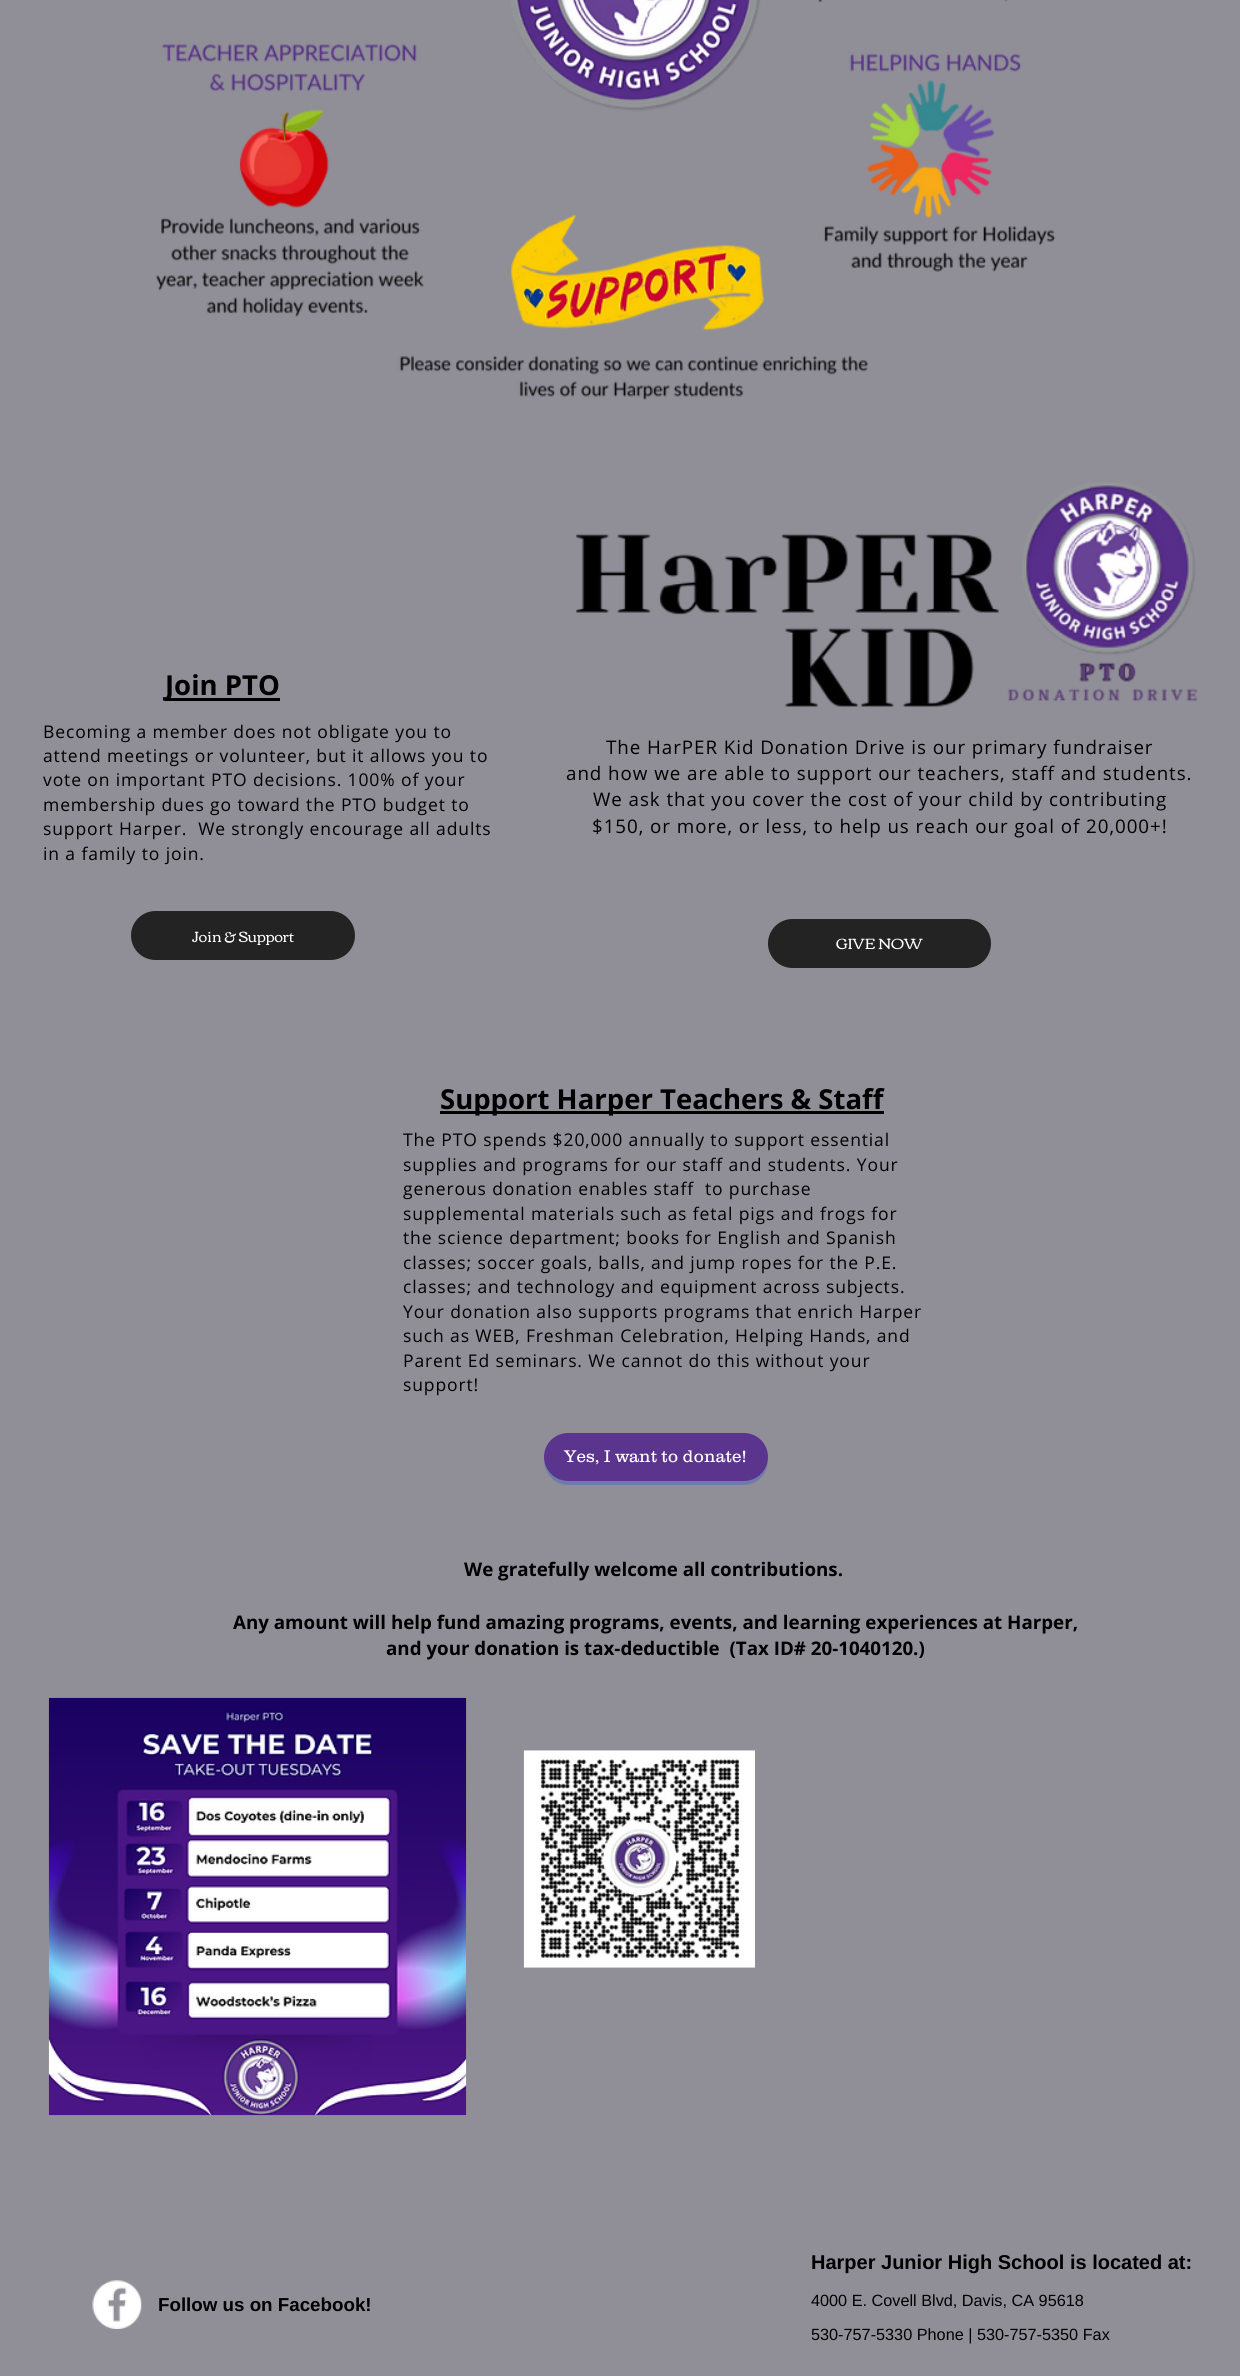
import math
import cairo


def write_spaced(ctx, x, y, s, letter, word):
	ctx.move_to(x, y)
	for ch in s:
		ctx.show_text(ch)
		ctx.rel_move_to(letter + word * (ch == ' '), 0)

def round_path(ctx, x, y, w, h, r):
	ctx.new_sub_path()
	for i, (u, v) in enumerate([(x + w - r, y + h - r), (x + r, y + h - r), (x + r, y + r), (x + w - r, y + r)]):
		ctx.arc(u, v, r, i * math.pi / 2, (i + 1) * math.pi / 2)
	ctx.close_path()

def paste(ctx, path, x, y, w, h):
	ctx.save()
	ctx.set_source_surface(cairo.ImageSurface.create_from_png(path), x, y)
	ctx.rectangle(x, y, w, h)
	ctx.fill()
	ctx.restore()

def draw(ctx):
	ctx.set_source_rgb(0.565, 0.561, 0.596)
	ctx.paint()
	paste(ctx, 'media/1.png', 156, 0, 899, 400)
	ctx.set_source_rgb(0, 0, 0)
	ctx.rectangle(165, 698, 115, 3)
	ctx.fill()
	ctx.select_font_face('Open Sans', cairo.FONT_SLANT_NORMAL, cairo.FONT_WEIGHT_BOLD)
	ctx.set_font_size(27.5)
	ctx.move_to(165, 695)
	ctx.show_text('Join PTO')
	paste(ctx, 'media/2.png', 576, 482, 622, 225)
	ctx.select_font_face('Open Sans')
	ctx.set_font_size(17.5)
	for x, y, s in [
		(43, 738, 'Becoming a member does not obligate you to'),
		(43, 762, 'attend meetings or volunteer, but it allows you to'),
		(43, 786, 'vote on important PTO decisions. 100% of your'),
		(43, 811, 'membership dues go toward the PTO budget to'),
		(43, 835, 'support Harper.  We strongly encourage all adults'),
		(43, 860, 'in a family to join.'),
	]:
		write_spaced(ctx, x, y, s, 0.88, 0)
	ctx.set_font_size(18.75)
	for x, y, s in [
		(606, 754, 'The HarPER Kid Donation Drive is our primary fundraiser'),
		(566, 780, 'and how we are able to support our teachers, staff and students.'),
		(593, 806, 'We ask that you cover the cost of your child by contributing'),
		(592, 833, '$150, or more, or less, to help us reach our goal of 20,000+!'),
	]:
		write_spaced(ctx, x, y, s, 0.95, 0)
	ctx.set_source_rgb(0.137, 0.137, 0.137)
	round_path(ctx, 131, 911, 224, 49, 24.5)
	ctx.fill()
	ctx.select_font_face('Corben')
	ctx.set_font_size(15)
	ctx.set_source_rgb(1, 1, 1)
	ctx.move_to(192, 942)
	ctx.show_text('Join & Support')
	ctx.set_source_rgb(0.137, 0.137, 0.137)
	round_path(ctx, 768, 919, 223, 49, 24.5)
	ctx.fill()
	ctx.set_source_rgb(1, 1, 1)
	ctx.move_to(836, 949)
	ctx.show_text('GIVE NOW')
	ctx.set_source_rgb(0, 0, 0)
	ctx.rectangle(440, 1111, 444, 3)
	ctx.fill()
	ctx.select_font_face('Open Sans', cairo.FONT_SLANT_NORMAL, cairo.FONT_WEIGHT_BOLD)
	ctx.set_font_size(27.5)
	ctx.move_to(440, 1109)
	ctx.show_text('Support Harper Teachers & Staff')
	ctx.select_font_face('Open Sans')
	ctx.set_font_size(17.5)
	for x, y, s in [
		(403, 1146, 'The PTO spends $20,000 annually to support essential'),
		(403, 1171, 'supplies and programs for our staff and students. Your'),
		(403, 1195, 'generous donation enables staff  to purchase'),
		(403, 1220, 'supplemental materials such as fetal pigs and frogs for'),
		(403, 1244, 'the science department; books for English and Spanish'),
		(403, 1269, 'classes; soccer goals, balls, and jump ropes for the P.E.'),
		(403, 1293, 'classes; and technology and equipment across subjects.'),
		(403, 1318, 'Your donation also supports programs that enrich Harper'),
		(403, 1342, 'such as WEB, Freshman Celebration, Helping Hands, and'),
		(403, 1367, 'Parent Ed seminars. We cannot do this without your'),
		(403, 1391, 'support!'),
	]:
		write_spaced(ctx, x, y, s, 0.88, 0)
	ctx.set_source_rgb(0.427, 0.486, 0.671)
	ctx.new_path()
	ctx.move_to(544, 1460)
	ctx.curve_to(544, 1474, 555, 1485, 568, 1485)
	ctx.line_to(744, 1485)
	ctx.curve_to(757, 1485, 768, 1474, 768, 1460)
	ctx.line_to(767, 1455)
	ctx.line_to(768, 1457)
	ctx.curve_to(768, 1470, 757, 1481, 743, 1481)
	ctx.line_to(568, 1481)
	ctx.curve_to(556, 1481, 546, 1472, 544, 1460)
	ctx.close_path()
	ctx.fill()
	ctx.set_source_rgb(0.357, 0.204, 0.553)
	round_path(ctx, 544, 1433, 224, 48, 24)
	ctx.fill()
	ctx.select_font_face('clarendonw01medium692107 Light')
	ctx.set_source_rgb(1, 1, 1)
	ctx.move_to(564, 1462)
	ctx.show_text('Yes, I want to donate!')
	ctx.select_font_face('Open Sans', cairo.FONT_SLANT_NORMAL, cairo.FONT_WEIGHT_BOLD)
	ctx.set_font_size(18.75)
	ctx.set_source_rgb(0, 0, 0)
	for x, y, s in [
		(464, 1576, 'We gratefully welcome all contributions.'),
		(233, 1629, 'Any amount will help fund amazing programs, events, and learning experiences at Harper,'),
		(386, 1655, 'and your donation is tax-deductible  (Tax ID# 20-1040120.)'),
	]:
		ctx.move_to(x, y)
		ctx.show_text(s)
	paste(ctx, 'media/3.png', 48, 1697, 419, 419)
	paste(ctx, 'media/4.png', 523, 1750, 232, 218)
	paste(ctx, 'media/5.png', 92, 2280, 50, 49)
	ctx.select_font_face('Liberation Sans', cairo.FONT_SLANT_NORMAL, cairo.FONT_WEIGHT_BOLD)
	ctx.move_to(158, 2311)
	ctx.show_text('Follow us on Facebook!')
	ctx.set_font_size(20)
	ctx.move_to(811, 2269)
	ctx.show_text('Harper Junior High School is located at:')
	ctx.select_font_face('Liberation Sans')
	ctx.set_font_size(16.25)
	ctx.move_to(811, 2306)
	ctx.show_text('4000 E. Covell Blvd, Davis, CA 95618')
	ctx.move_to(811, 2340)
	ctx.show_text('530-757-5330 Phone | 530-757-5350 Fax')


surface = cairo.ImageSurface(cairo.FORMAT_RGB24, 1240, 2376)
ctx = cairo.Context(surface)
options = cairo.FontOptions()
options.set_hint_metrics(cairo.HINT_METRICS_OFF)
options.set_hint_style(cairo.HINT_STYLE_NONE)
ctx.set_font_options(options)
ctx.set_miter_limit(4)
draw(ctx)
surface.write_to_png('image.png')
